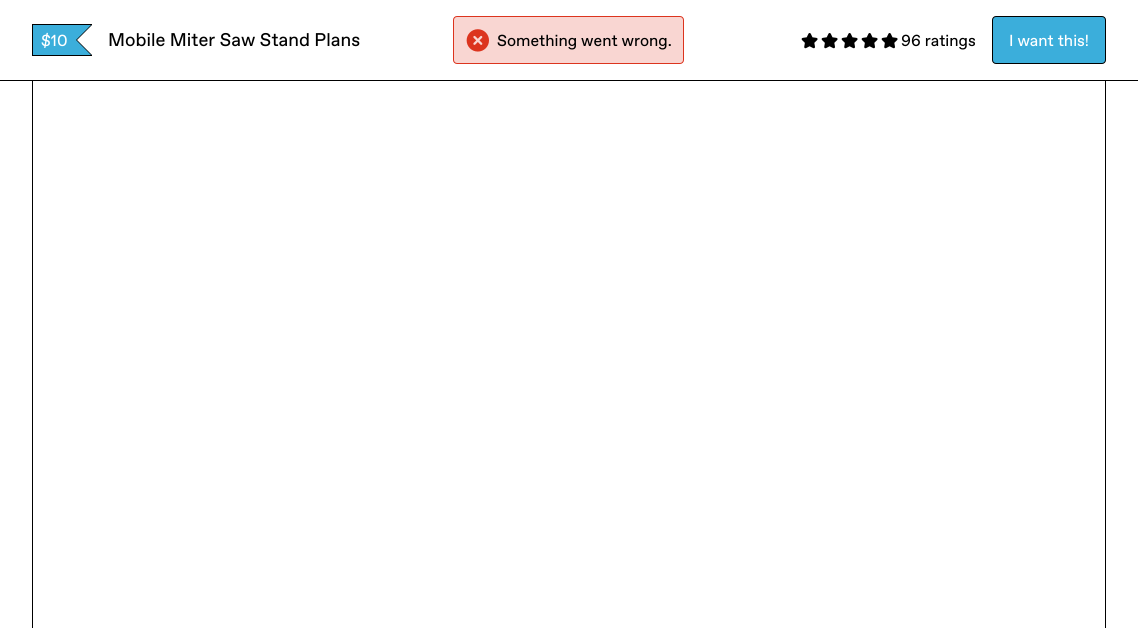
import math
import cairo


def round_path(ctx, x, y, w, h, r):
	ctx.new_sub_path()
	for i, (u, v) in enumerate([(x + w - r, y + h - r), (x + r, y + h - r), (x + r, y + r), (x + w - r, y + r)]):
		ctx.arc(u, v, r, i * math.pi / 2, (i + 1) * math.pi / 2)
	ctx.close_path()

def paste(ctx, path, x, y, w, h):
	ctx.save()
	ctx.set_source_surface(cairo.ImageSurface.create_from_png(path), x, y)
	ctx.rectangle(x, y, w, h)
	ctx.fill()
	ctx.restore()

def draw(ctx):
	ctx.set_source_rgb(1, 1, 1)
	ctx.paint()
	ctx.rectangle(32.5, 64.5, 1073, 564)
	ctx.set_source_rgb(0, 0, 0)
	ctx.set_line_width(1)
	ctx.stroke()
	ctx.rectangle(0, 80, 1138, 1)
	ctx.fill()
	ctx.set_source_rgb(1, 1, 1)
	ctx.rectangle(32, 64, 1074, 16)
	ctx.fill()
	ctx.set_source_rgb(0, 0, 0)
	ctx.rectangle(32, 24, 60, 1)
	ctx.rectangle(32, 55, 60, 1)
	ctx.rectangle(32, 24, 1, 32)
	ctx.fill()
	ctx.set_source_rgb(0.231, 0.682, 0.859)
	ctx.rectangle(33, 25, 43, 30)
	ctx.fill()
	ctx.set_source_rgb(0, 0, 0)
	ctx.new_path()
	ctx.move_to(76, 25)
	ctx.line_to(92, 25)
	ctx.line_to(77, 40)
	ctx.close_path()
	ctx.move_to(92, 55)
	ctx.line_to(76, 55)
	ctx.line_to(77, 40)
	ctx.close_path()
	ctx.fill()
	ctx.rectangle(76, 39, 1, 2)
	ctx.fill()
	ctx.set_source_rgb(0.231, 0.682, 0.859)
	ctx.new_path()
	ctx.move_to(75, 25)
	ctx.line_to(91, 25)
	ctx.line_to(76, 40)
	ctx.close_path()
	ctx.move_to(91, 55)
	ctx.line_to(75, 55)
	ctx.line_to(76, 40)
	ctx.close_path()
	ctx.fill()
	ctx.select_font_face('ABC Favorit')
	ctx.set_font_size(16)
	ctx.set_source_rgb(1, 1, 1)
	ctx.move_to(41, 46)
	ctx.show_text('$10')
	ctx.set_font_size(18.4)
	ctx.set_source_rgb(0, 0, 0)
	ctx.move_to(108, 46)
	ctx.show_text('Mobile Miter Saw Stand Plans')
	paste(ctx, 'media/1.png', 801, 33, 17, 16)
	paste(ctx, 'media/1.png', 821, 33, 17, 16)
	paste(ctx, 'media/1.png', 841, 33, 17, 16)
	paste(ctx, 'media/1.png', 861, 33, 17, 16)
	paste(ctx, 'media/1.png', 881, 33, 17, 16)
	ctx.set_font_size(16)
	ctx.move_to(901, 46)
	ctx.show_text('96 ratings')
	ctx.set_source_rgb(0.231, 0.682, 0.859)
	round_path(ctx, 992.5, 16.5, 113, 47, 3.5)
	ctx.fill_preserve()
	ctx.set_source_rgb(0, 0, 0)
	ctx.stroke()
	ctx.set_source_rgb(1, 1, 1)
	ctx.move_to(1009, 46)
	ctx.show_text('I want this!')
	ctx.set_source_rgb(0.973, 0.839, 0.824)
	round_path(ctx, 453.5, 16.5, 230, 47, 3.5)
	ctx.fill_preserve()
	ctx.set_source_rgb(0.863, 0.204, 0.118)
	ctx.stroke()
	paste(ctx, 'media/2.png', 466, 29, 23, 23)
	ctx.set_source_rgb(0, 0, 0)
	ctx.move_to(497, 46)
	ctx.show_text('Something went wrong.')


surface = cairo.ImageSurface(cairo.FORMAT_RGB24, 1138, 628)
ctx = cairo.Context(surface)
options = cairo.FontOptions()
options.set_hint_metrics(cairo.HINT_METRICS_OFF)
options.set_hint_style(cairo.HINT_STYLE_NONE)
ctx.set_font_options(options)
ctx.set_miter_limit(4)
draw(ctx)
surface.write_to_png('image.png')
